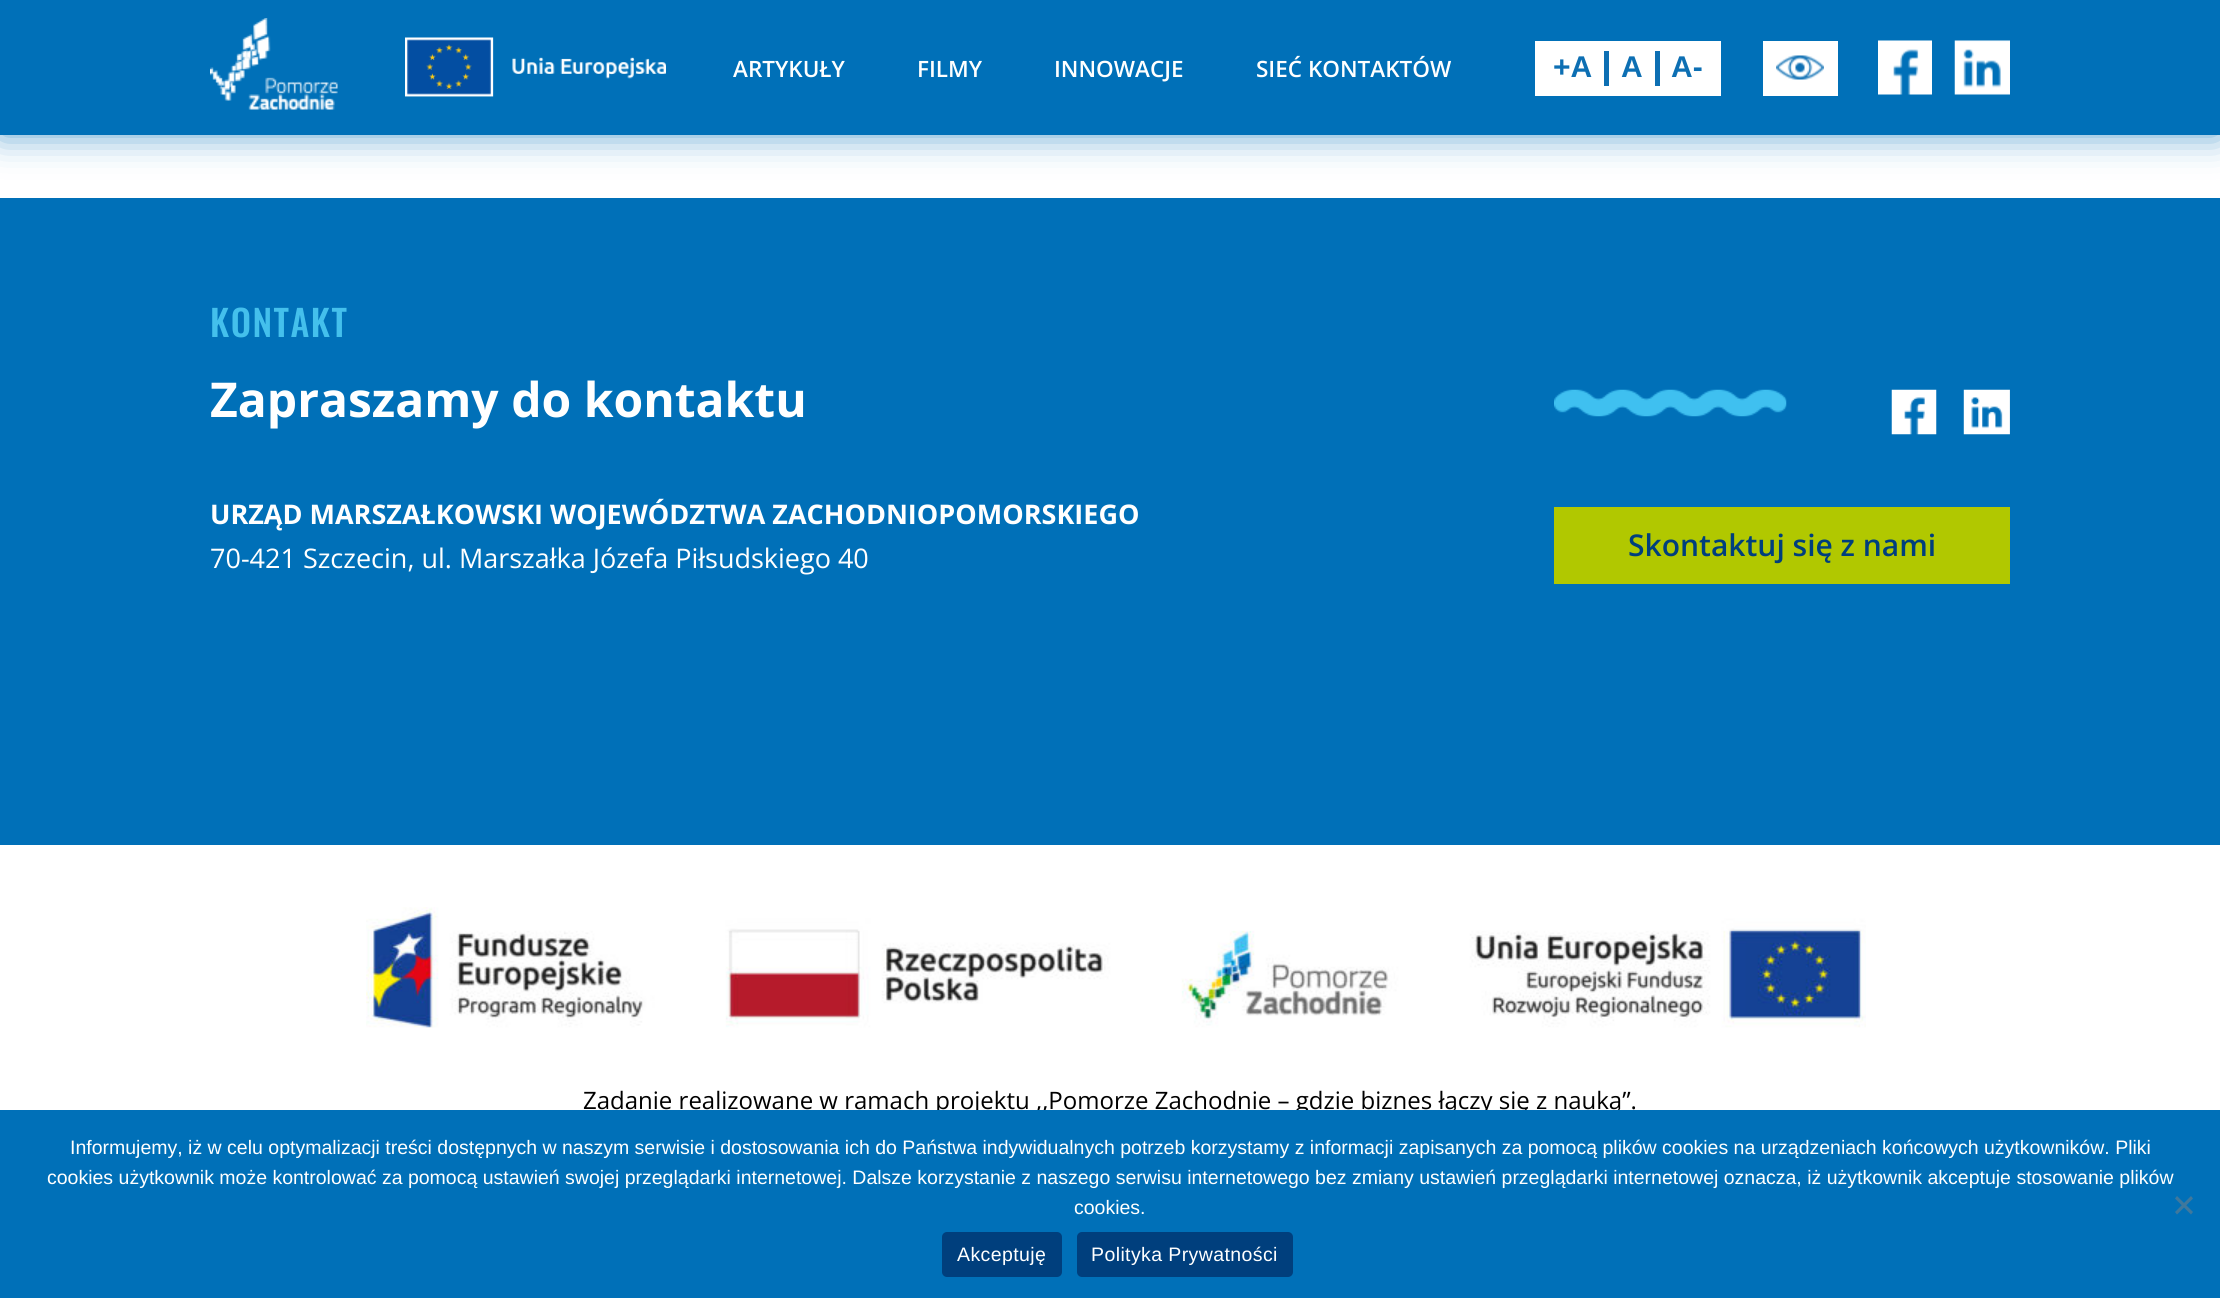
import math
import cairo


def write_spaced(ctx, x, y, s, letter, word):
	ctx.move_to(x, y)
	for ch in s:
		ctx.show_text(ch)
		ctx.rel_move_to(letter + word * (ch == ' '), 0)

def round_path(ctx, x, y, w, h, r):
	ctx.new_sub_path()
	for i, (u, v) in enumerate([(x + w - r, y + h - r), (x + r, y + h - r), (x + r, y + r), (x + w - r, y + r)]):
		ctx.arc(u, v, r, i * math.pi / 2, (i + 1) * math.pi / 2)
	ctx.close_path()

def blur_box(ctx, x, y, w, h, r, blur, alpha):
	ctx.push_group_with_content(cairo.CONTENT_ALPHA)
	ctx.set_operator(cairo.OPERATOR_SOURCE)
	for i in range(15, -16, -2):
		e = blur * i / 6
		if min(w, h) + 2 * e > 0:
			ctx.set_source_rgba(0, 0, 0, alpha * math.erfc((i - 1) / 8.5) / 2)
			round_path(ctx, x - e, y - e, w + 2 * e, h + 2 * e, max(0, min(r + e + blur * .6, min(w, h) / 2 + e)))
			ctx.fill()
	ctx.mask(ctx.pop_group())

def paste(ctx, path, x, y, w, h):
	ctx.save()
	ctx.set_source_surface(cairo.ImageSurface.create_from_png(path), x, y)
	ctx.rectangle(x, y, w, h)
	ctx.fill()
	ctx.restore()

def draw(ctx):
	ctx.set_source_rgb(1, 1, 1)
	ctx.paint()
	ctx.set_source_rgb(0, 0.439, 0.722)
	blur_box(ctx, 0, 0, 2220, 135, 0, 18, 0.66)
	ctx.set_source_rgb(0, 0.439, 0.722)
	ctx.rectangle(0, 0, 2220, 135)
	ctx.fill()
	paste(ctx, 'media/1.png', 210, 18, 128, 92)
	paste(ctx, 'media/2.png', 405, 37, 261, 60)
	ctx.select_font_face('Open Sans SemiBold')
	ctx.set_font_size(22.5)
	ctx.set_source_rgb(1, 1, 1)
	for x, y, s in [
		(733, 77, 'ARTYKUŁY'),
		(917, 77, 'FILMY'),
		(1054, 77, 'INNOWACJE'),
		(1256, 77, 'SIEĆ KONTAKTÓW'),
	]:
		ctx.move_to(x, y)
		ctx.show_text(s)
	ctx.rectangle(1535, 41, 186, 55)
	ctx.fill()
	ctx.set_source_rgb(0.051, 0.435, 0.702)
	ctx.rectangle(1604, 51, 5, 35)
	ctx.fill()
	ctx.select_font_face('Liberation Sans', cairo.FONT_SLANT_NORMAL, cairo.FONT_WEIGHT_BOLD)
	ctx.set_font_size(30)
	ctx.move_to(1553, 77)
	ctx.show_text('+A')
	ctx.rectangle(1655, 51, 5, 35)
	ctx.fill()
	ctx.move_to(1621, 77)
	ctx.show_text('A')
	ctx.move_to(1671, 77)
	ctx.show_text('A-')
	ctx.set_source_rgb(1, 1, 1)
	ctx.rectangle(1763, 41, 75, 55)
	ctx.fill()
	paste(ctx, 'media/3.png', 1776, 55, 48, 25)
	paste(ctx, 'media/4.png', 1878, 40, 54, 55)
	paste(ctx, 'media/5.png', 1954, 40, 56, 55)
	ctx.set_source_rgb(0, 0.439, 0.722)
	ctx.rectangle(0, 198, 2220, 647)
	ctx.fill()
	ctx.select_font_face('Oswald Medium')
	ctx.set_font_size(36)
	ctx.set_source_rgb(0.267, 0.753, 0.922)
	write_spaced(ctx, 210, 337, 'KONTAKT', 1.5, 0)
	ctx.select_font_face('Open Sans', cairo.FONT_SLANT_NORMAL, cairo.FONT_WEIGHT_BOLD)
	ctx.set_font_size(48)
	ctx.set_source_rgb(1, 1, 1)
	ctx.move_to(210, 417)
	ctx.show_text('Zapraszamy do kontaktu')
	ctx.set_font_size(27)
	ctx.move_to(210, 524)
	ctx.show_text('URZĄD MARSZAŁKOWSKI WOJEWÓDZTWA ZACHODNIOPOMORSKIEGO')
	ctx.select_font_face('Open Sans')
	ctx.move_to(210, 568)
	ctx.show_text('70-421 Szczecin, ul. Marszałka Józefa Piłsudskiego 40')
	paste(ctx, 'media/6.png', 1554, 389, 233, 28)
	paste(ctx, 'media/7.png', 1891, 389, 46, 46)
	paste(ctx, 'media/8.png', 1963, 389, 47, 46)
	ctx.set_source_rgb(0.694, 0.784, 0)
	ctx.rectangle(1554, 507, 456, 77)
	ctx.fill()
	ctx.select_font_face('Open Sans SemiBold')
	ctx.set_font_size(30)
	ctx.set_source_rgb(0, 0.247, 0.49)
	ctx.move_to(1628, 556)
	ctx.show_text('Skontaktuj się z nami')
	paste(ctx, 'media/9.png', 366, 907, 1500, 121)
	ctx.select_font_face('Open Sans')
	ctx.set_font_size(24)
	ctx.set_source_rgb(0, 0, 0)
	ctx.move_to(583, 1109)
	ctx.show_text('Zadanie realizowane w ramach projektu ,,Pomorze Zachodnie – gdzie biznes łączy się z nauką”.')
	ctx.set_source_rgb(0, 0.439, 0.722)
	ctx.rectangle(0, 1110, 2220, 188)
	ctx.fill()
	ctx.select_font_face('Liberation Sans')
	ctx.set_font_size(19.5)
	ctx.set_source_rgb(1, 1, 1)
	for x, y, s in [
		(70, 1154, 'Informujemy, iż w celu optymalizacji treści dostępnych w naszym serwisie i dostosowania ich do Państwa indywidualnych potrzeb korzystamy z informacji zapisanych za pomocą plików cookies na urządzeniach końcowych użytkowników. Pliki'),
		(47, 1184, 'cookies użytkownik może kontrolować za pomocą ustawień swojej przeglądarki internetowej. Dalsze korzystanie z naszego serwisu internetowego bez zmiany ustawień przeglądarki internetowej oznacza, iż użytkownik akceptuje stosowanie plików'),
		(1074, 1214, 'cookies.'),
	]:
		ctx.move_to(x, y)
		ctx.show_text(s)
	ctx.set_source_rgb(0.251, 0.471, 0.612)
	ctx.new_path()
	ctx.move_to(2191, 1196)
	ctx.line_to(2193, 1198.5)
	ctx.line_to(2177, 1214.5)
	ctx.line_to(2175, 1212)
	ctx.close_path()
	ctx.fill()
	ctx.new_path()
	ctx.move_to(2175, 1198.5)
	ctx.line_to(2177, 1196)
	ctx.line_to(2193, 1212)
	ctx.line_to(2191, 1214.5)
	ctx.close_path()
	ctx.fill()
	ctx.set_source_rgb(0, 0.247, 0.49)
	round_path(ctx, 942, 1232, 120, 45, 5)
	ctx.fill()
	ctx.set_source_rgb(1, 1, 1)
	write_spaced(ctx, 957, 1261, 'Akceptuję', 0.4, 0)
	ctx.set_source_rgb(0, 0.247, 0.49)
	round_path(ctx, 1077, 1232, 216, 45, 5)
	ctx.fill()
	ctx.set_source_rgb(1, 1, 1)
	write_spaced(ctx, 1091, 1261, 'Polityka Prywatności', 0.4, 0)


surface = cairo.ImageSurface(cairo.FORMAT_RGB24, 2220, 1298)
ctx = cairo.Context(surface)
options = cairo.FontOptions()
options.set_hint_metrics(cairo.HINT_METRICS_OFF)
options.set_hint_style(cairo.HINT_STYLE_NONE)
ctx.set_font_options(options)
ctx.set_miter_limit(4)
draw(ctx)
surface.write_to_png('image.png')
